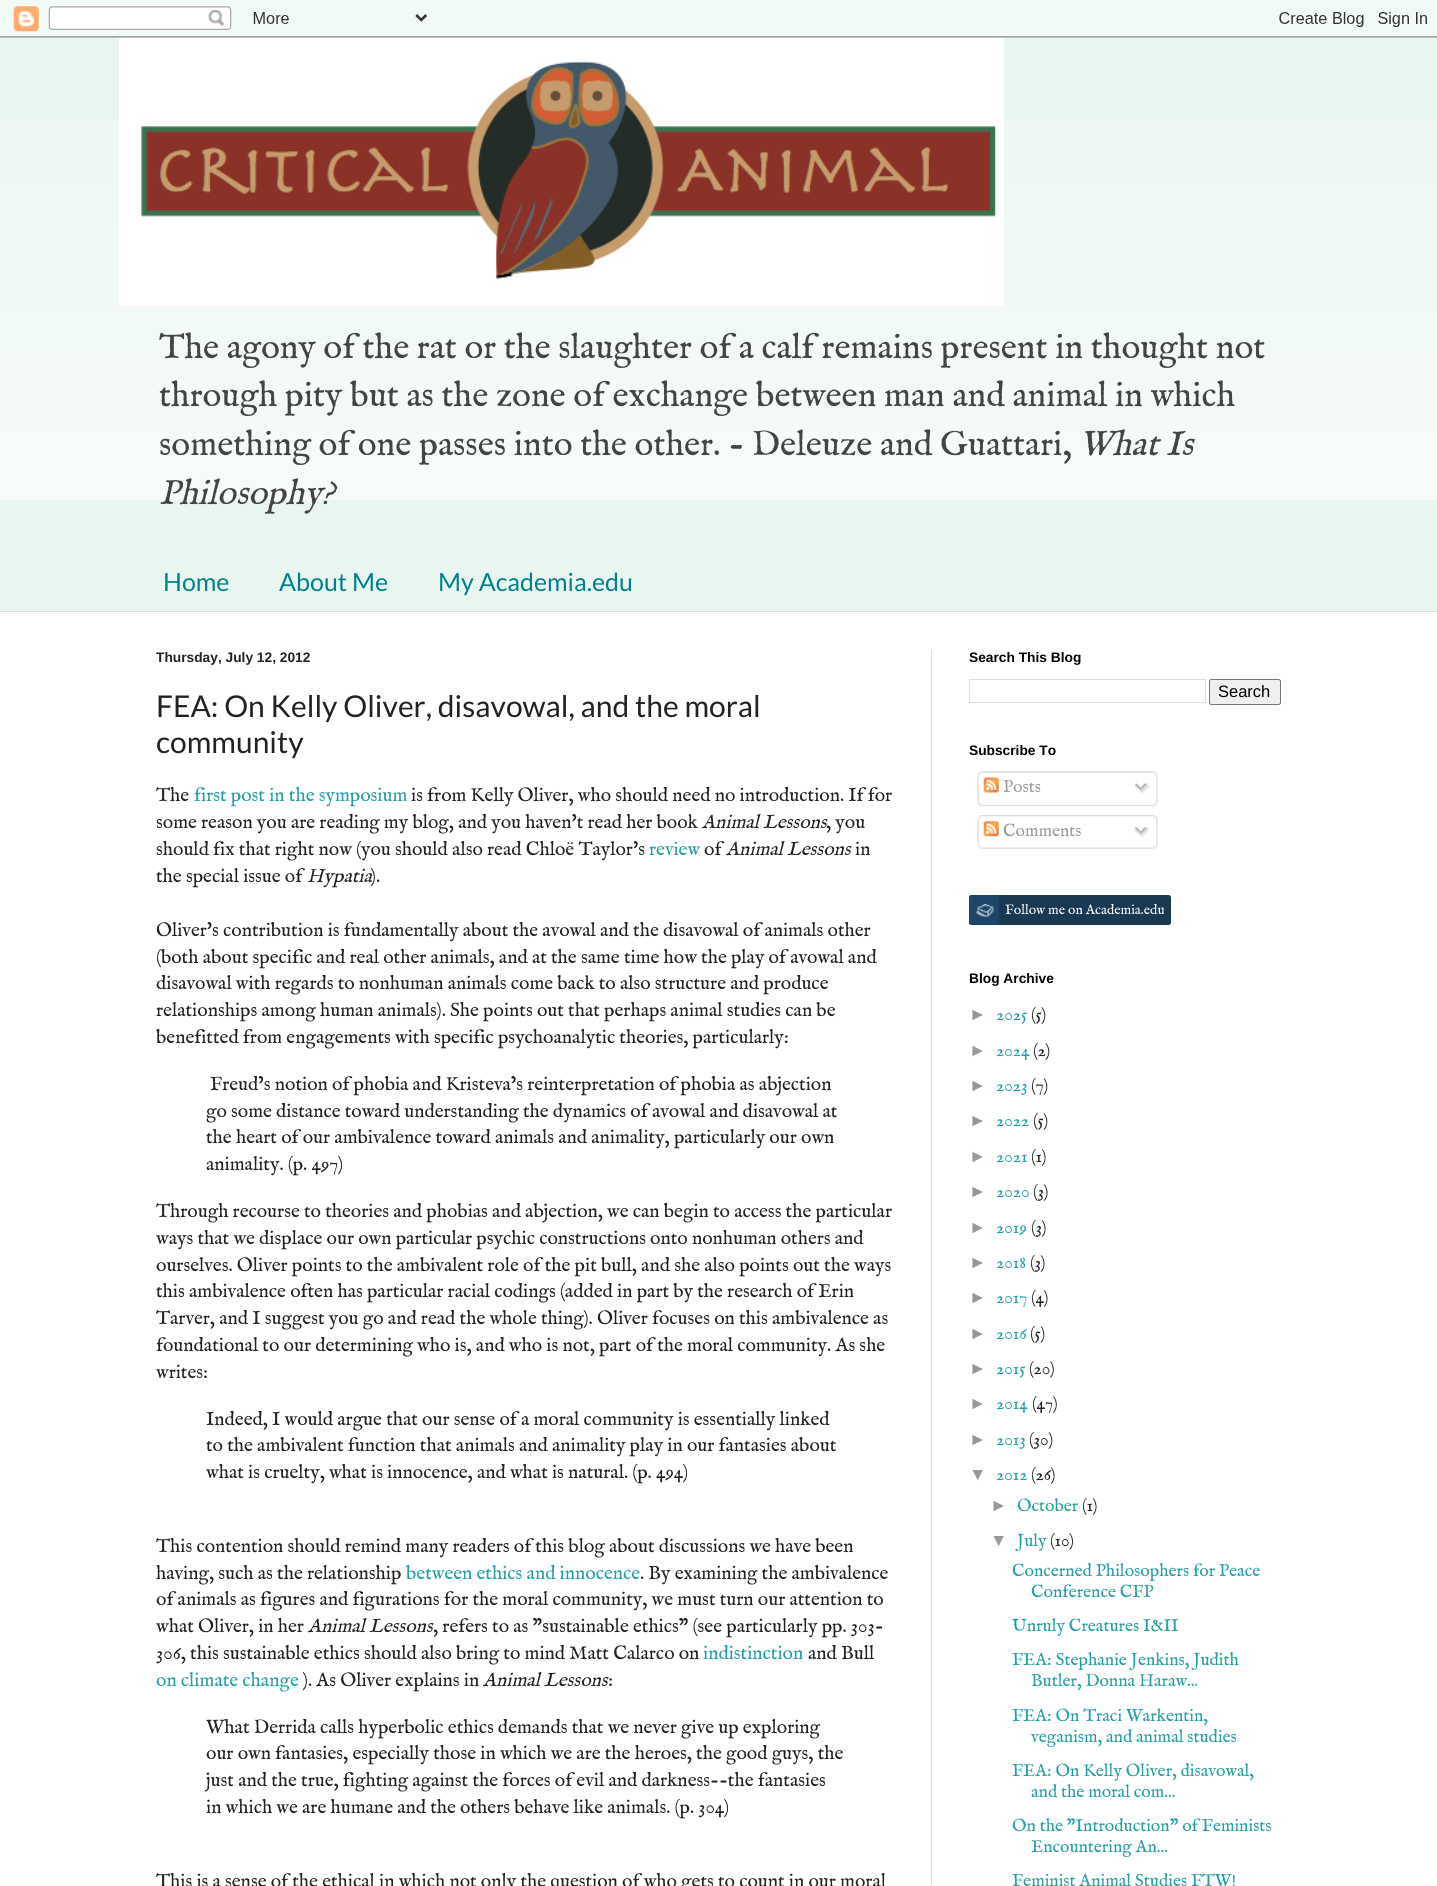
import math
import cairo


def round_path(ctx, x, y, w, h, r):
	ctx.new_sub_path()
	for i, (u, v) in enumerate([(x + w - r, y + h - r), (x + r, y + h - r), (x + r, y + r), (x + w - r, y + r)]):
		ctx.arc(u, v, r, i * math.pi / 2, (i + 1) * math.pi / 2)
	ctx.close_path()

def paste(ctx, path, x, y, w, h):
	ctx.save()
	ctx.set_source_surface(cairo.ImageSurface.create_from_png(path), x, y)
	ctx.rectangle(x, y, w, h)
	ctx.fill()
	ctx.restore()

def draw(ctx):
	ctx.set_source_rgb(0.914, 0.961, 0.937)
	ctx.paint()
	paste(ctx, 'media/2.png', 0, 120, 1437, 380)
	paste(ctx, 'media/3.png', 119, 37, 885, 269)
	paste(ctx, 'media/1.png', 0, 0, 1437, 38)
	ctx.select_font_face('IM FELL English')
	ctx.set_font_size(35)
	ctx.set_source_rgb(0.267, 0.267, 0.267)
	for x, y, s in [
		(159, 358, 'The agony of the rat or the slaughter of a calf remains present in thought not'),
		(159, 406, 'through pity but as the zone of exchange between man and animal in which'),
		(159, 455, 'something of one passes into the other. - Deleuze and Guattari,'),
	]:
		ctx.move_to(x, y)
		ctx.show_text(s)
	ctx.select_font_face('IM FELL English', cairo.FONT_SLANT_ITALIC)
	ctx.move_to(1079, 455)
	ctx.show_text('What Is')
	ctx.move_to(159, 504)
	ctx.show_text('Philosophy?')
	ctx.select_font_face('Lato')
	ctx.set_font_size(25)
	ctx.set_source_rgb(0, 0.506, 0.545)
	for x, y, s in [
		(163, 591, 'Home'),
		(279, 591, 'About Me'),
		(438, 591, 'My Academia.edu'),
	]:
		ctx.move_to(x, y)
		ctx.show_text(s)
	ctx.set_source_rgb(1, 1, 1)
	ctx.rectangle(0, 612, 1437, 1274)
	ctx.fill()
	ctx.set_source_rgb(0.867, 0.867, 0.867)
	ctx.rectangle(0, 611, 1437, 1)
	ctx.rectangle(931, 650, 1, 1236)
	ctx.fill()
	ctx.select_font_face('Liberation Sans', cairo.FONT_SLANT_NORMAL, cairo.FONT_WEIGHT_BOLD)
	ctx.set_font_size(13.75)
	ctx.set_source_rgb(0.133, 0.133, 0.133)
	ctx.move_to(156, 662)
	ctx.show_text('Thursday, July 12, 2012')
	ctx.select_font_face('Lato')
	ctx.set_font_size(30)
	ctx.move_to(156, 717)
	ctx.show_text('FEA: On Kelly Oliver, disavowal, and the moral')
	ctx.move_to(156, 753)
	ctx.show_text('community')
	ctx.select_font_face('IM FELL English')
	ctx.set_font_size(19.25)
	ctx.move_to(156, 801)
	ctx.show_text('The')
	ctx.set_source_rgb(0.141, 0.624, 0.639)
	ctx.move_to(194, 801)
	ctx.show_text('first post in the symposium')
	ctx.set_source_rgb(0.133, 0.133, 0.133)
	ctx.move_to(411, 801)
	ctx.show_text('is from Kelly Oliver, who should need no introduction. If for')
	ctx.move_to(156, 828)
	ctx.show_text('some reason you are reading my blog, and you haven\'t read her book')
	ctx.select_font_face('IM FELL English', cairo.FONT_SLANT_ITALIC)
	ctx.move_to(702, 828)
	ctx.show_text('Animal Lessons')
	ctx.select_font_face('IM FELL English')
	ctx.move_to(826, 828)
	ctx.show_text(', you')
	ctx.move_to(156, 855)
	ctx.show_text('should fix that right now (you should also read Chloë Taylor\'s')
	ctx.set_source_rgb(0.141, 0.624, 0.639)
	ctx.move_to(649, 855)
	ctx.show_text('review')
	ctx.set_source_rgb(0.133, 0.133, 0.133)
	ctx.move_to(704, 855)
	ctx.show_text('of')
	ctx.select_font_face('IM FELL English', cairo.FONT_SLANT_ITALIC)
	ctx.move_to(726, 855)
	ctx.show_text('Animal Lessons')
	ctx.select_font_face('IM FELL English')
	ctx.move_to(855, 855)
	ctx.show_text('in')
	ctx.move_to(156, 882)
	ctx.show_text('the special issue of')
	ctx.select_font_face('IM FELL English', cairo.FONT_SLANT_ITALIC)
	ctx.move_to(307, 882)
	ctx.show_text('Hypatia')
	ctx.select_font_face('IM FELL English')
	for x, y, s in [
		(371, 882, ').'),
		(156, 936, 'Oliver\'s contribution is fundamentally about the avowal and the disavowal of animals other'),
		(156, 963, '(both about specific and real other animals, and at the same time how the play of avowal and'),
		(156, 989, 'disavowal with regards to nonhuman animals come back to also structure and produce'),
		(156, 1016, 'relationships among human animals). She points out that perhaps animal studies can be'),
		(156, 1043, 'benefitted from engagements with specific psychoanalytic theories, particularly:'),
		(210, 1090, 'Freud’s notion of phobia and Kristeva’s reinterpretation of phobia as abjection'),
		(206, 1117, 'go some distance toward understanding the dynamics of avowal and disavowal at'),
		(206, 1143, 'the heart of our ambivalence toward animals and animality, particularly our own'),
		(206, 1170, 'animality. (p. 497)'),
		(156, 1217, 'Through recourse to theories and phobias and abjection, we can begin to access the particular'),
		(156, 1244, 'ways that we displace our own particular psychic constructions onto nonhuman others and'),
		(156, 1271, 'ourselves. Oliver points to the ambivalent role of the pit bull, and she also points out the ways'),
		(156, 1297, 'this ambivalence often has particular racial codings (added in part by the research of Erin'),
		(156, 1324, 'Tarver, and I suggest you go and read the whole thing). Oliver focuses on this ambivalence as'),
		(156, 1351, 'foundational to our determining who is, and who is not, part of the moral community. As she'),
		(156, 1378, 'writes:'),
		(206, 1425, 'Indeed, I would argue that our sense of a moral community is essentially linked'),
		(206, 1451, 'to the ambivalent function that animals and animality play in our fantasies about'),
		(206, 1478, 'what is cruelty, what is innocence, and what is natural. (p. 494)'),
		(156, 1552, 'This contention should remind many readers of this blog about discussions we have been'),
		(156, 1579, 'having, such as the relationship'),
	]:
		ctx.move_to(x, y)
		ctx.show_text(s)
	ctx.set_source_rgb(0.141, 0.624, 0.639)
	ctx.move_to(406, 1579)
	ctx.show_text('between ethics and innocence')
	ctx.set_source_rgb(0.133, 0.133, 0.133)
	for x, y, s in [
		(640, 1579, '. By examining the ambivalence'),
		(156, 1605, 'of animals as figures and figurations for the moral community, we must turn our attention to'),
		(156, 1632, 'what Oliver, in her'),
	]:
		ctx.move_to(x, y)
		ctx.show_text(s)
	ctx.select_font_face('IM FELL English', cairo.FONT_SLANT_ITALIC)
	ctx.move_to(308, 1632)
	ctx.show_text('Animal Lessons')
	ctx.select_font_face('IM FELL English')
	ctx.move_to(433, 1632)
	ctx.show_text(', refers to as "sustainable ethics" (see particularly pp. 303-')
	ctx.move_to(156, 1659)
	ctx.show_text('306, this sustainable ethics should also bring to mind Matt Calarco on')
	ctx.set_source_rgb(0.141, 0.624, 0.639)
	ctx.move_to(703, 1659)
	ctx.show_text('indistinction')
	ctx.set_source_rgb(0.133, 0.133, 0.133)
	ctx.move_to(808, 1659)
	ctx.show_text('and Bull')
	ctx.set_source_rgb(0.141, 0.624, 0.639)
	ctx.move_to(156, 1686)
	ctx.show_text('on climate change')
	ctx.set_source_rgb(0.133, 0.133, 0.133)
	ctx.move_to(303, 1686)
	ctx.show_text('). As Oliver explains in')
	ctx.select_font_face('IM FELL English', cairo.FONT_SLANT_ITALIC)
	ctx.move_to(483, 1686)
	ctx.show_text('Animal Lessons')
	ctx.select_font_face('IM FELL English')
	for x, y, s in [
		(608, 1686, ':'),
		(206, 1733, 'What Derrida calls hyperbolic ethics demands that we never give up exploring'),
		(206, 1759, 'our own fantasies, especially those in which we are the heroes, the good guys, the'),
		(206, 1786, 'just and the true, fighting against the forces of evil and darkness--the fantasies'),
		(206, 1813, 'in which we are humane and the others behave like animals. (p. 304)'),
		(156, 1887, 'This is a sense of the ethical in which not only the question of who gets to count in our moral'),
	]:
		ctx.move_to(x, y)
		ctx.show_text(s)
	ctx.select_font_face('Liberation Sans', cairo.FONT_SLANT_NORMAL, cairo.FONT_WEIGHT_BOLD)
	ctx.set_font_size(13.75)
	ctx.set_source_rgb(0, 0, 0)
	ctx.move_to(969, 662)
	ctx.show_text('Search This Blog')
	ctx.rectangle(969.5, 679.5, 236, 23)
	ctx.set_source_rgb(0.867, 0.867, 0.867)
	ctx.set_line_width(1)
	ctx.stroke()
	ctx.set_source_rgb(0.937, 0.937, 0.937)
	round_path(ctx, 1209.5, 679.5, 71, 25, 2)
	ctx.fill_preserve()
	ctx.set_source_rgb(0.463, 0.463, 0.463)
	ctx.stroke()
	ctx.select_font_face('Liberation Sans')
	ctx.set_font_size(16.5)
	ctx.set_source_rgb(0, 0, 0)
	ctx.move_to(1218, 697)
	ctx.show_text('Search')
	ctx.select_font_face('Liberation Sans', cairo.FONT_SLANT_NORMAL, cairo.FONT_WEIGHT_BOLD)
	ctx.set_font_size(13.75)
	ctx.move_to(969, 755)
	ctx.show_text('Subscribe To')
	paste(ctx, 'media/4.png', 977, 771, 181, 32)
	paste(ctx, 'media/5.png', 983, 777, 16, 16)
	ctx.select_font_face('IM FELL English')
	ctx.set_font_size(17.5)
	ctx.set_source_rgb(0.6, 0.6, 0.6)
	ctx.move_to(1003, 792)
	ctx.show_text('Posts')
	paste(ctx, 'media/6.png', 1134, 783, 16, 11)
	paste(ctx, 'media/7.png', 977, 802, 181, 5)
	paste(ctx, 'media/8.png', 977, 815, 181, 30)
	paste(ctx, 'media/9.png', 983, 821, 16, 16)
	ctx.move_to(1003, 836)
	ctx.show_text('Comments')
	paste(ctx, 'media/10.png', 1134, 826, 16, 12)
	paste(ctx, 'media/11.png', 977, 845, 181, 4)
	ctx.set_source_rgb(0.098, 0.224, 0.325)
	round_path(ctx, 969, 895, 202, 30, 2.5)
	ctx.fill()
	ctx.set_source_rgb(0.11, 0.275, 0.412)
	round_path(ctx, 969, 895, 30, 30, 2.5)
	ctx.fill()
	paste(ctx, 'media/12.png', 976, 903, 18, 15)
	ctx.set_font_size(13.75)
	ctx.set_source_rgb(1, 1, 1)
	ctx.move_to(1005, 914)
	ctx.show_text('Follow me on Academia.edu')
	ctx.select_font_face('Liberation Sans', cairo.FONT_SLANT_NORMAL, cairo.FONT_WEIGHT_BOLD)
	ctx.set_source_rgb(0, 0, 0)
	ctx.move_to(969, 983)
	ctx.show_text('Blog Archive')
	ctx.select_font_face('Liberation Sans')
	ctx.set_font_size(17.5)
	ctx.set_source_rgb(0.6, 0.6, 0.6)
	ctx.move_to(969, 1020)
	ctx.show_text('►')
	ctx.select_font_face('IM FELL English')
	ctx.set_source_rgb(0.141, 0.624, 0.639)
	ctx.move_to(996, 1020)
	ctx.show_text('2025')
	ctx.set_source_rgb(0.133, 0.133, 0.133)
	ctx.move_to(1031, 1020)
	ctx.show_text('(5)')
	ctx.select_font_face('Liberation Sans')
	ctx.set_source_rgb(0.6, 0.6, 0.6)
	ctx.move_to(969, 1056)
	ctx.show_text('►')
	ctx.select_font_face('IM FELL English')
	ctx.set_source_rgb(0.141, 0.624, 0.639)
	ctx.move_to(996, 1056)
	ctx.show_text('2024')
	ctx.set_source_rgb(0.133, 0.133, 0.133)
	ctx.move_to(1033, 1056)
	ctx.show_text('(2)')
	ctx.select_font_face('Liberation Sans')
	ctx.set_source_rgb(0.6, 0.6, 0.6)
	ctx.move_to(969, 1091)
	ctx.show_text('►')
	ctx.select_font_face('IM FELL English')
	ctx.set_source_rgb(0.141, 0.624, 0.639)
	ctx.move_to(996, 1091)
	ctx.show_text('2023')
	ctx.set_source_rgb(0.133, 0.133, 0.133)
	ctx.move_to(1031, 1091)
	ctx.show_text('(7)')
	ctx.select_font_face('Liberation Sans')
	ctx.set_source_rgb(0.6, 0.6, 0.6)
	ctx.move_to(969, 1126)
	ctx.show_text('►')
	ctx.select_font_face('IM FELL English')
	ctx.set_source_rgb(0.141, 0.624, 0.639)
	ctx.move_to(996, 1126)
	ctx.show_text('2022')
	ctx.set_source_rgb(0.133, 0.133, 0.133)
	ctx.move_to(1033, 1126)
	ctx.show_text('(5)')
	ctx.select_font_face('Liberation Sans')
	ctx.set_source_rgb(0.6, 0.6, 0.6)
	ctx.move_to(969, 1162)
	ctx.show_text('►')
	ctx.select_font_face('IM FELL English')
	ctx.set_source_rgb(0.141, 0.624, 0.639)
	ctx.move_to(996, 1162)
	ctx.show_text('2021')
	ctx.set_source_rgb(0.133, 0.133, 0.133)
	ctx.move_to(1031, 1162)
	ctx.show_text('(1)')
	ctx.select_font_face('Liberation Sans')
	ctx.set_source_rgb(0.6, 0.6, 0.6)
	ctx.move_to(969, 1197)
	ctx.show_text('►')
	ctx.select_font_face('IM FELL English')
	ctx.set_source_rgb(0.141, 0.624, 0.639)
	ctx.move_to(996, 1197)
	ctx.show_text('2020')
	ctx.set_source_rgb(0.133, 0.133, 0.133)
	ctx.move_to(1033, 1197)
	ctx.show_text('(3)')
	ctx.select_font_face('Liberation Sans')
	ctx.set_source_rgb(0.6, 0.6, 0.6)
	ctx.move_to(969, 1233)
	ctx.show_text('►')
	ctx.select_font_face('IM FELL English')
	ctx.set_source_rgb(0.141, 0.624, 0.639)
	ctx.move_to(996, 1233)
	ctx.show_text('2019')
	ctx.set_source_rgb(0.133, 0.133, 0.133)
	ctx.move_to(1031, 1233)
	ctx.show_text('(3)')
	ctx.select_font_face('Liberation Sans')
	ctx.set_source_rgb(0.6, 0.6, 0.6)
	ctx.move_to(969, 1268)
	ctx.show_text('►')
	ctx.select_font_face('IM FELL English')
	ctx.set_source_rgb(0.141, 0.624, 0.639)
	ctx.move_to(996, 1268)
	ctx.show_text('2018')
	ctx.set_source_rgb(0.133, 0.133, 0.133)
	ctx.move_to(1030, 1268)
	ctx.show_text('(3)')
	ctx.select_font_face('Liberation Sans')
	ctx.set_source_rgb(0.6, 0.6, 0.6)
	ctx.move_to(969, 1303)
	ctx.show_text('►')
	ctx.select_font_face('IM FELL English')
	ctx.set_source_rgb(0.141, 0.624, 0.639)
	ctx.move_to(996, 1303)
	ctx.show_text('2017')
	ctx.set_source_rgb(0.133, 0.133, 0.133)
	ctx.move_to(1031, 1303)
	ctx.show_text('(4)')
	ctx.select_font_face('Liberation Sans')
	ctx.set_source_rgb(0.6, 0.6, 0.6)
	ctx.move_to(969, 1339)
	ctx.show_text('►')
	ctx.select_font_face('IM FELL English')
	ctx.set_source_rgb(0.141, 0.624, 0.639)
	ctx.move_to(996, 1339)
	ctx.show_text('2016')
	ctx.set_source_rgb(0.133, 0.133, 0.133)
	ctx.move_to(1030, 1339)
	ctx.show_text('(5)')
	ctx.select_font_face('Liberation Sans')
	ctx.set_source_rgb(0.6, 0.6, 0.6)
	ctx.move_to(969, 1374)
	ctx.show_text('►')
	ctx.select_font_face('IM FELL English')
	ctx.set_source_rgb(0.141, 0.624, 0.639)
	ctx.move_to(996, 1374)
	ctx.show_text('2015')
	ctx.set_source_rgb(0.133, 0.133, 0.133)
	ctx.move_to(1029, 1374)
	ctx.show_text('(20)')
	ctx.select_font_face('Liberation Sans')
	ctx.set_source_rgb(0.6, 0.6, 0.6)
	ctx.move_to(969, 1409)
	ctx.show_text('►')
	ctx.select_font_face('IM FELL English')
	ctx.set_source_rgb(0.141, 0.624, 0.639)
	ctx.move_to(996, 1409)
	ctx.show_text('2014')
	ctx.set_source_rgb(0.133, 0.133, 0.133)
	ctx.move_to(1032, 1409)
	ctx.show_text('(47)')
	ctx.select_font_face('Liberation Sans')
	ctx.set_source_rgb(0.6, 0.6, 0.6)
	ctx.move_to(969, 1445)
	ctx.show_text('►')
	ctx.select_font_face('IM FELL English')
	ctx.set_source_rgb(0.141, 0.624, 0.639)
	ctx.move_to(996, 1445)
	ctx.show_text('2013')
	ctx.set_source_rgb(0.133, 0.133, 0.133)
	ctx.move_to(1029, 1445)
	ctx.show_text('(30)')
	ctx.select_font_face('Liberation Sans')
	ctx.set_source_rgb(0.6, 0.6, 0.6)
	ctx.move_to(969, 1480)
	ctx.show_text('▼')
	ctx.select_font_face('IM FELL English')
	ctx.set_source_rgb(0.141, 0.624, 0.639)
	ctx.move_to(996, 1480)
	ctx.show_text('2012')
	ctx.set_source_rgb(0.133, 0.133, 0.133)
	ctx.move_to(1031, 1480)
	ctx.show_text('(26)')
	ctx.select_font_face('Liberation Sans')
	ctx.set_source_rgb(0.6, 0.6, 0.6)
	ctx.move_to(990, 1511)
	ctx.show_text('►')
	ctx.select_font_face('IM FELL English')
	ctx.set_source_rgb(0.141, 0.624, 0.639)
	ctx.move_to(1017, 1511)
	ctx.show_text('October')
	ctx.set_source_rgb(0.133, 0.133, 0.133)
	ctx.move_to(1082, 1511)
	ctx.show_text('(1)')
	ctx.select_font_face('Liberation Sans')
	ctx.set_source_rgb(0.6, 0.6, 0.6)
	ctx.move_to(990, 1546)
	ctx.show_text('▼')
	ctx.select_font_face('IM FELL English')
	ctx.set_source_rgb(0.141, 0.624, 0.639)
	ctx.move_to(1017, 1546)
	ctx.show_text('July')
	ctx.set_source_rgb(0.133, 0.133, 0.133)
	ctx.move_to(1050, 1546)
	ctx.show_text('(10)')
	ctx.set_source_rgb(0.141, 0.624, 0.639)
	for x, y, s in [
		(1012, 1576, 'Concerned Philosophers for Peace'),
		(1031, 1597, 'Conference CFP'),
		(1012, 1631, 'Unruly Creatures I&II'),
		(1012, 1665, 'FEA: Stephanie Jenkins, Judith'),
		(1031, 1686, 'Butler, Donna Haraw...'),
		(1012, 1721, 'FEA: On Traci Warkentin,'),
		(1031, 1742, 'veganism, and animal studies'),
		(1012, 1776, 'FEA: On Kelly Oliver, disavowal,'),
		(1031, 1797, 'and the moral com...'),
		(1012, 1831, 'On the "Introduction" of Feminists'),
		(1031, 1852, 'Encountering An...'),
		(1012, 1886, 'Feminist Animal Studies FTW!'),
	]:
		ctx.move_to(x, y)
		ctx.show_text(s)


surface = cairo.ImageSurface(cairo.FORMAT_RGB24, 1437, 1886)
ctx = cairo.Context(surface)
options = cairo.FontOptions()
options.set_hint_metrics(cairo.HINT_METRICS_OFF)
options.set_hint_style(cairo.HINT_STYLE_NONE)
ctx.set_font_options(options)
ctx.set_miter_limit(4)
draw(ctx)
surface.write_to_png('image.png')
